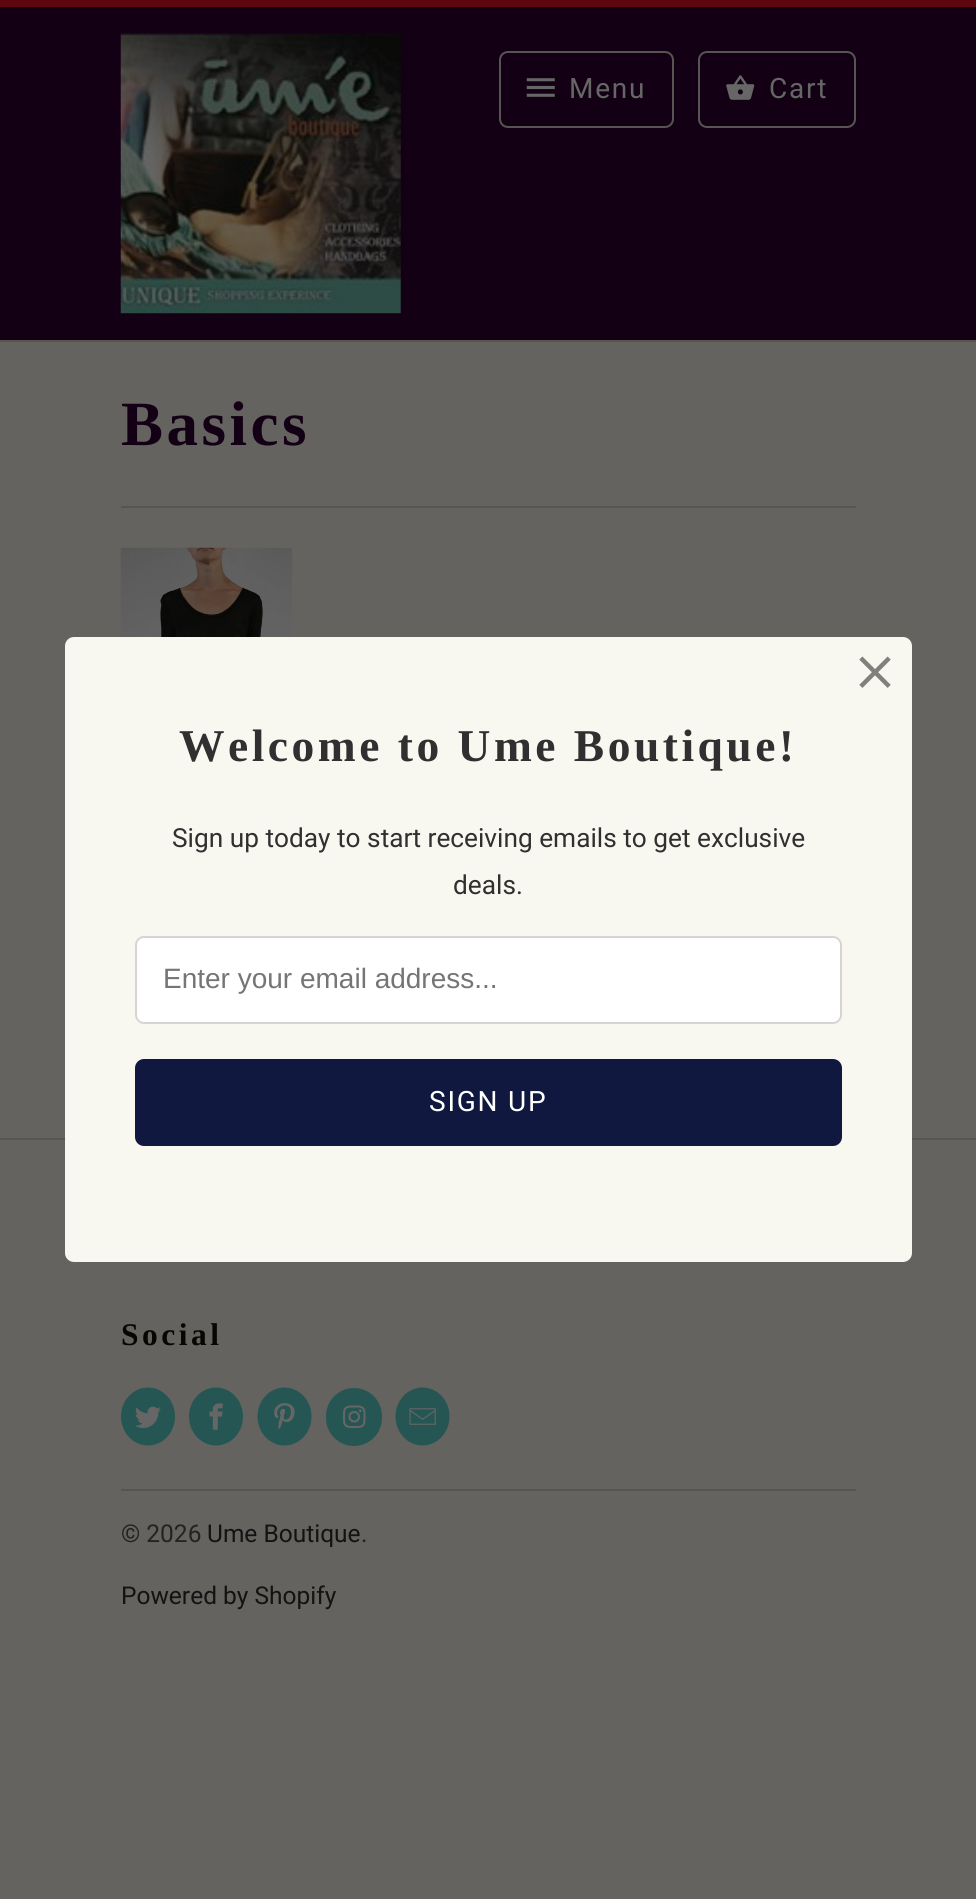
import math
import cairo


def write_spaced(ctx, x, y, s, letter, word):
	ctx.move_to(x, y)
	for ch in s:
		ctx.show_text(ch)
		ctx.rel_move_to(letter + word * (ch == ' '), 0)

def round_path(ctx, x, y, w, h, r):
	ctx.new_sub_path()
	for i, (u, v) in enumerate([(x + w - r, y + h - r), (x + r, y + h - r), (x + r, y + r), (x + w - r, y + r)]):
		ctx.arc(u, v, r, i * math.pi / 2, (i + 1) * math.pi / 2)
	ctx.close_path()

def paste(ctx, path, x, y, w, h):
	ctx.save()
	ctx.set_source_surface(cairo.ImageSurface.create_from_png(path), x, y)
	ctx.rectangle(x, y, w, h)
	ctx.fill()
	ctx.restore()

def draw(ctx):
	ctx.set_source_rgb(0.392, 0.388, 0.376)
	ctx.paint()
	ctx.set_source_rgb(0.369, 0.031, 0.055)
	ctx.rectangle(0, 0, 976, 7)
	ctx.fill()
	ctx.set_source_rgb(0.075, 0, 0.082)
	ctx.rectangle(0, 7, 976, 333)
	ctx.fill()
	ctx.set_source_rgb(0.337, 0.333, 0.329)
	ctx.rectangle(0, 340, 976, 2)
	ctx.fill()
	paste(ctx, 'media/1.png', 120, 33, 281, 281)
	round_path(ctx, 500, 52, 173, 75, 8)
	ctx.stroke()
	paste(ctx, 'media/2.png', 526, 78, 29, 19)
	ctx.select_font_face('Roboto')
	ctx.set_font_size(28)
	ctx.set_source_rgb(0.4, 0.4, 0.4)
	write_spaced(ctx, 569, 98, 'Menu', 1.75, 0)
	round_path(ctx, 699, 52, 156, 75, 8)
	ctx.set_source_rgb(0.337, 0.333, 0.329)
	ctx.stroke()
	paste(ctx, 'media/3.png', 726, 75, 29, 25)
	ctx.set_source_rgb(0.4, 0.4, 0.4)
	write_spaced(ctx, 769, 98, 'Cart', 1.75, 0)
	ctx.set_source_rgb(0.337, 0.333, 0.329)
	ctx.rectangle(121, 506, 735, 2)
	ctx.fill()
	ctx.select_font_face('Liberation Serif', cairo.FONT_SLANT_NORMAL, cairo.FONT_WEIGHT_BOLD)
	ctx.set_font_size(63)
	ctx.set_source_rgb(0.075, 0, 0.082)
	write_spaced(ctx, 121, 445, 'Basics', 3.5, 0)
	paste(ctx, 'media/4.png', 120, 547, 173, 90)
	ctx.set_source_rgb(0.337, 0.333, 0.329)
	ctx.rectangle(0, 1138, 976, 2)
	ctx.fill()
	ctx.set_source_rgb(0.976, 0.969, 0.941)
	round_path(ctx, 65, 637, 847, 625, 9)
	ctx.fill()
	paste(ctx, 'media/5.png', 859, 656, 32, 32)
	ctx.set_font_size(45.5)
	ctx.set_source_rgb(0.188, 0.188, 0.188)
	write_spaced(ctx, 179, 761, 'Welcome to Ume Boutique!', 3.5, 0)
	ctx.select_font_face('Roboto')
	ctx.set_font_size(26.25)
	ctx.move_to(172, 847)
	ctx.show_text('Sign up today to start receiving emails to get exclusive')
	ctx.move_to(453, 894)
	ctx.show_text('deals.')
	ctx.set_source_rgb(1, 1, 1)
	round_path(ctx, 136, 937, 705, 86, 8)
	ctx.fill_preserve()
	ctx.set_source_rgb(0.843, 0.831, 0.827)
	ctx.stroke()
	ctx.select_font_face('Liberation Sans')
	ctx.set_font_size(28)
	ctx.set_source_rgb(0.459, 0.459, 0.459)
	ctx.move_to(163, 988)
	ctx.show_text('Enter your email address...')
	ctx.set_source_rgb(0.067, 0.094, 0.251)
	round_path(ctx, 135, 1059, 707, 87, 9)
	ctx.fill()
	ctx.select_font_face('Roboto')
	ctx.set_source_rgb(1, 1, 1)
	write_spaced(ctx, 429, 1111, 'SIGN UP', 1.75, 0)
	ctx.select_font_face('Liberation Serif', cairo.FONT_SLANT_NORMAL, cairo.FONT_WEIGHT_BOLD)
	ctx.set_font_size(31.5)
	ctx.set_source_rgb(0.031, 0.024, 0.004)
	write_spaced(ctx, 121, 1345, 'Social', 3.5, 0)
	ctx.set_source_rgb(0.149, 0.337, 0.325)
	ctx.new_path()
	ctx.move_to(148, 1387.5)
	ctx.curve_to(163, 1387.5, 175, 1400.5, 175, 1416.5)
	ctx.curve_to(175, 1432.5, 163, 1445.5, 148, 1445.5)
	ctx.curve_to(133, 1445.5, 121, 1432.5, 121, 1416.5)
	ctx.curve_to(121, 1400.5, 133, 1387.5, 148, 1387.5)
	ctx.close_path()
	ctx.fill()
	paste(ctx, 'media/6.png', 135, 1406, 26, 22)
	ctx.new_path()
	ctx.move_to(216, 1387.5)
	ctx.curve_to(231, 1387.5, 243, 1400.5, 243, 1416.5)
	ctx.curve_to(243, 1432.5, 231, 1445.5, 216, 1445.5)
	ctx.curve_to(201, 1445.5, 189, 1432.5, 189, 1416.5)
	ctx.curve_to(189, 1400.5, 201, 1387.5, 216, 1387.5)
	ctx.close_path()
	ctx.fill()
	paste(ctx, 'media/7.png', 209, 1403, 14, 27)
	ctx.new_path()
	ctx.move_to(284.5, 1387.5)
	ctx.curve_to(299.5, 1387.5, 311.5, 1400.5, 311.5, 1416.5)
	ctx.curve_to(311.5, 1432.5, 299.5, 1445.5, 284.5, 1445.5)
	ctx.curve_to(269.5, 1445.5, 257.5, 1432.5, 257.5, 1416.5)
	ctx.curve_to(257.5, 1400.5, 269.5, 1387.5, 284.5, 1387.5)
	ctx.close_path()
	ctx.fill()
	paste(ctx, 'media/8.png', 274, 1403, 21, 27)
	round_path(ctx, 326, 1388, 56, 58, 28)
	ctx.fill()
	paste(ctx, 'media/9.png', 343, 1405, 23, 23)
	ctx.new_path()
	ctx.move_to(422.5, 1387.5)
	ctx.curve_to(437.5, 1387.5, 449.5, 1400.5, 449.5, 1416.5)
	ctx.curve_to(449.5, 1432.5, 437.5, 1445.5, 422.5, 1445.5)
	ctx.curve_to(407.5, 1445.5, 395.5, 1432.5, 395.5, 1416.5)
	ctx.curve_to(395.5, 1400.5, 407.5, 1387.5, 422.5, 1387.5)
	ctx.close_path()
	ctx.fill()
	paste(ctx, 'media/10.png', 409, 1408, 27, 17)
	ctx.set_source_rgb(0.337, 0.333, 0.329)
	ctx.rectangle(121, 1489, 735, 2)
	ctx.fill()
	ctx.select_font_face('Roboto')
	ctx.set_font_size(24.5)
	ctx.set_source_rgb(0.137, 0.137, 0.125)
	ctx.move_to(121, 1542)
	ctx.show_text('© 2026')
	ctx.set_source_rgb(0.078, 0.078, 0.078)
	ctx.move_to(207, 1542)
	ctx.show_text('Ume Boutique')
	ctx.set_source_rgb(0.137, 0.137, 0.125)
	ctx.move_to(361, 1542)
	ctx.show_text('.')
	ctx.set_source_rgb(0.078, 0.078, 0.078)
	ctx.move_to(121, 1604)
	ctx.show_text('Powered by Shopify')


surface = cairo.ImageSurface(cairo.FORMAT_RGB24, 976, 1899)
ctx = cairo.Context(surface)
options = cairo.FontOptions()
options.set_hint_metrics(cairo.HINT_METRICS_OFF)
options.set_hint_style(cairo.HINT_STYLE_NONE)
ctx.set_font_options(options)
ctx.set_miter_limit(4)
draw(ctx)
surface.write_to_png('image.png')
